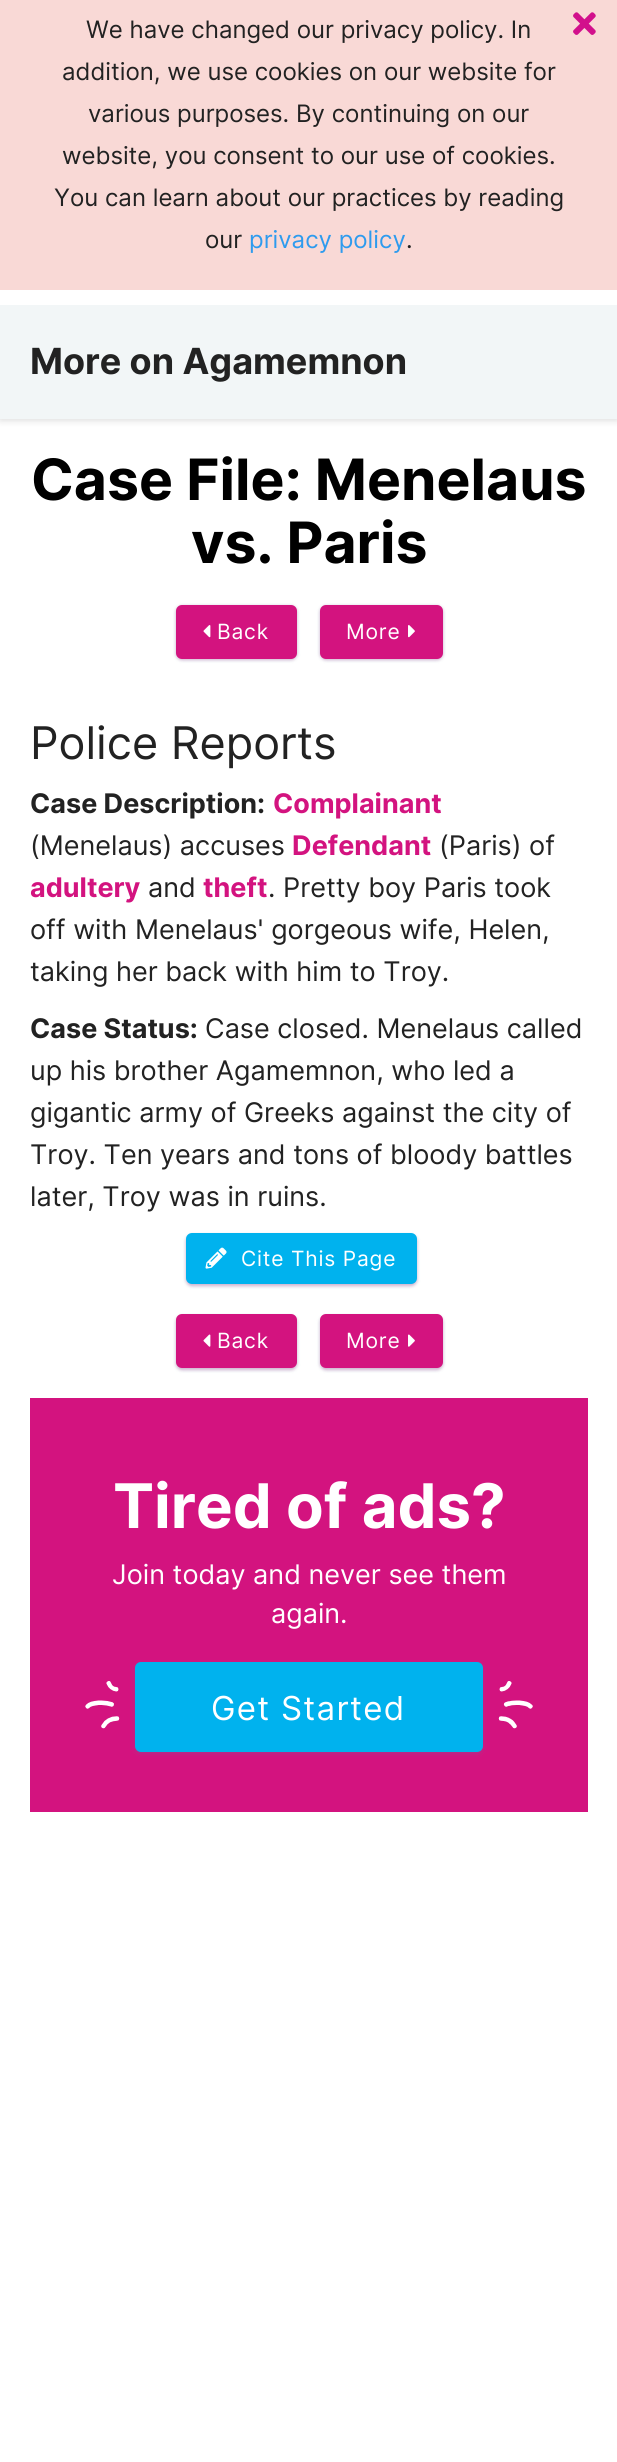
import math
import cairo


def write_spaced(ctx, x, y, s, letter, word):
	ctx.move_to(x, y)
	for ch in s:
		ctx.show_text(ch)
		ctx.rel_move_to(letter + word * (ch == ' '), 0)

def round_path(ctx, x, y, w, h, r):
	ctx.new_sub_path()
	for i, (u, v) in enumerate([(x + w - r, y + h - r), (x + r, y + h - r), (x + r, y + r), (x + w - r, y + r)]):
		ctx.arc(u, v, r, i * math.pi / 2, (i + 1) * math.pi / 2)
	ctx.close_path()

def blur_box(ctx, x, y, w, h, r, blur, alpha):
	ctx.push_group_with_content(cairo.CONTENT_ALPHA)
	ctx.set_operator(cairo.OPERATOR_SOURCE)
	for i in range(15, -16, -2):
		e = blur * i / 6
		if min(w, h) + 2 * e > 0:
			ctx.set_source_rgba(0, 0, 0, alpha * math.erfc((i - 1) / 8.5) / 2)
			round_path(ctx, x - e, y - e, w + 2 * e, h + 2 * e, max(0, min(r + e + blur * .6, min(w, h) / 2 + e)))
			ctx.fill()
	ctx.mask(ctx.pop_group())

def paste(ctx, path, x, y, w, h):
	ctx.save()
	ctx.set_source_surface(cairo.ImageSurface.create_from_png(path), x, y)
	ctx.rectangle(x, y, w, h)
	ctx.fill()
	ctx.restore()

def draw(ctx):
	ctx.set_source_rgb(1, 1, 1)
	ctx.paint()
	ctx.set_source_rgb(0.976, 0.851, 0.839)
	ctx.rectangle(0, 0, 617, 290)
	ctx.fill()
	ctx.select_font_face('Inter')
	ctx.set_font_size(24)
	ctx.set_source_rgb(0.133, 0.133, 0.133)
	for x, y, s in [
		(86, 38, 'We have changed our privacy policy. In'),
		(62, 80, 'addition, we use cookies on our website for'),
		(88, 122, 'various purposes. By continuing on our'),
		(62, 164, 'website, you consent to our use of cookies.'),
		(54, 206, 'You can learn about our practices by reading'),
		(205, 248, 'our'),
	]:
		ctx.move_to(x, y)
		ctx.show_text(s)
	ctx.set_source_rgb(0.18, 0.608, 0.933)
	ctx.move_to(249, 248)
	ctx.show_text('privacy policy')
	ctx.set_source_rgb(0.133, 0.133, 0.133)
	ctx.move_to(406, 248)
	ctx.show_text('.')
	paste(ctx, 'media/1.png', 573, 12, 23, 23)
	ctx.save()
	ctx.rectangle(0, 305, 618, 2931)
	ctx.clip()
	ctx.set_source_rgb(0, 0, 0)
	blur_box(ctx, 0, 306, 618, 114, 0, 4, 0.15)
	ctx.restore()
	ctx.set_source_rgb(0.949, 0.961, 0.965)
	ctx.rectangle(0, 305, 617, 114)
	ctx.fill()
	ctx.select_font_face('Inter', cairo.FONT_SLANT_NORMAL, cairo.FONT_WEIGHT_BOLD)
	ctx.set_font_size(36)
	ctx.set_source_rgb(0.133, 0.133, 0.133)
	ctx.move_to(30, 374)
	ctx.show_text('More on Agamemnon')
	ctx.set_font_size(57)
	ctx.set_source_rgb(0, 0, 0)
	ctx.move_to(31, 500)
	ctx.show_text('Case File: Menelaus')
	ctx.move_to(191, 563)
	ctx.show_text('vs. Paris')
	ctx.set_source_rgb(0.173, 0.561, 0.686)
	blur_box(ctx, 176, 606, 121, 54, 6, 2, 0.2)
	ctx.set_source_rgb(0.722, 0.18, 0.486)
	blur_box(ctx, 176, 606, 121, 54, 6, 1.5, 0.3)
	ctx.set_source_rgb(0.827, 0.075, 0.498)
	round_path(ctx, 176, 605, 121, 54, 6)
	ctx.fill()
	paste(ctx, 'media/2.png', 203, 625, 8, 13)
	ctx.select_font_face('Inter')
	ctx.set_font_size(21)
	ctx.set_source_rgb(1, 1, 1)
	write_spaced(ctx, 217, 639, 'Back', 0.8, 0)
	ctx.set_source_rgb(0.173, 0.561, 0.686)
	blur_box(ctx, 320, 606, 123, 54, 6, 2, 0.2)
	ctx.set_source_rgb(0.722, 0.18, 0.486)
	blur_box(ctx, 320, 606, 123, 54, 6, 1.5, 0.3)
	ctx.set_source_rgb(0.827, 0.075, 0.498)
	round_path(ctx, 320, 605, 123, 54, 6)
	ctx.fill()
	ctx.set_source_rgb(1, 1, 1)
	write_spaced(ctx, 346, 639, 'More', 0.8, 0)
	paste(ctx, 'media/3.png', 408, 625, 7, 13)
	ctx.set_font_size(45)
	ctx.set_source_rgb(0.133, 0.133, 0.133)
	ctx.move_to(30, 759)
	ctx.show_text('Police Reports')
	ctx.select_font_face('Inter', cairo.FONT_SLANT_NORMAL, cairo.FONT_WEIGHT_BOLD)
	ctx.set_font_size(27)
	ctx.move_to(30, 813)
	ctx.show_text('Case Description:')
	ctx.set_source_rgb(0.827, 0.075, 0.498)
	ctx.move_to(273, 813)
	ctx.show_text('Complainant')
	ctx.select_font_face('Inter')
	ctx.set_source_rgb(0.133, 0.133, 0.133)
	ctx.move_to(30, 855)
	ctx.show_text('(Menelaus) accuses')
	ctx.select_font_face('Inter', cairo.FONT_SLANT_NORMAL, cairo.FONT_WEIGHT_BOLD)
	ctx.set_source_rgb(0.827, 0.075, 0.498)
	ctx.move_to(292, 855)
	ctx.show_text('Defendant')
	ctx.select_font_face('Inter')
	ctx.set_source_rgb(0.133, 0.133, 0.133)
	ctx.move_to(439, 855)
	ctx.show_text('(Paris) of')
	ctx.select_font_face('Inter', cairo.FONT_SLANT_NORMAL, cairo.FONT_WEIGHT_BOLD)
	ctx.set_source_rgb(0.827, 0.075, 0.498)
	ctx.move_to(30, 897)
	ctx.show_text('adultery')
	ctx.select_font_face('Inter')
	ctx.set_source_rgb(0.133, 0.133, 0.133)
	ctx.move_to(148, 897)
	ctx.show_text('and')
	ctx.select_font_face('Inter', cairo.FONT_SLANT_NORMAL, cairo.FONT_WEIGHT_BOLD)
	ctx.set_source_rgb(0.827, 0.075, 0.498)
	ctx.move_to(203, 897)
	ctx.show_text('theft')
	ctx.select_font_face('Inter')
	ctx.set_source_rgb(0.133, 0.133, 0.133)
	for x, y, s in [
		(268, 897, '. Pretty boy Paris took'),
		(30, 939, 'off with Menelaus\' gorgeous wife, Helen,'),
		(30, 981, 'taking her back with him to Troy.'),
	]:
		ctx.move_to(x, y)
		ctx.show_text(s)
	ctx.select_font_face('Inter', cairo.FONT_SLANT_NORMAL, cairo.FONT_WEIGHT_BOLD)
	ctx.move_to(30, 1038)
	ctx.show_text('Case Status:')
	ctx.select_font_face('Inter')
	for x, y, s in [
		(205, 1038, 'Case closed. Menelaus called'),
		(30, 1080, 'up his brother Agamemnon, who led a'),
		(30, 1122, 'gigantic army of Greeks against the city of'),
		(30, 1164, 'Troy. Ten years and tons of bloody battles'),
		(30, 1206, 'later, Troy was in ruins.'),
	]:
		ctx.move_to(x, y)
		ctx.show_text(s)
	ctx.set_source_rgb(0.173, 0.561, 0.686)
	blur_box(ctx, 186, 1235, 231, 51, 6, 2, 0.2)
	ctx.set_source_rgb(0.722, 0.18, 0.486)
	blur_box(ctx, 186, 1235, 231, 51, 6, 1.5, 0.3)
	ctx.set_source_rgb(0, 0.698, 0.933)
	round_path(ctx, 186, 1233, 231, 51, 6)
	ctx.fill()
	paste(ctx, 'media/4.png', 205, 1247, 22, 22)
	ctx.set_font_size(21)
	ctx.set_source_rgb(1, 1, 1)
	write_spaced(ctx, 241, 1266, 'Cite This Page', 0.8, 0)
	ctx.set_source_rgb(0.173, 0.561, 0.686)
	blur_box(ctx, 176, 1316, 121, 54, 6, 2, 0.2)
	ctx.set_source_rgb(0.722, 0.18, 0.486)
	blur_box(ctx, 176, 1316, 121, 54, 6, 1.5, 0.3)
	ctx.set_source_rgb(0.827, 0.075, 0.498)
	round_path(ctx, 176, 1314, 121, 54, 6)
	ctx.fill()
	paste(ctx, 'media/5.png', 203, 1334, 8, 13)
	ctx.set_source_rgb(1, 1, 1)
	write_spaced(ctx, 217, 1348, 'Back', 0.8, 0)
	ctx.set_source_rgb(0.173, 0.561, 0.686)
	blur_box(ctx, 320, 1316, 123, 54, 6, 2, 0.2)
	ctx.set_source_rgb(0.722, 0.18, 0.486)
	blur_box(ctx, 320, 1316, 123, 54, 6, 1.5, 0.3)
	ctx.set_source_rgb(0.827, 0.075, 0.498)
	round_path(ctx, 320, 1314, 123, 54, 6)
	ctx.fill()
	ctx.set_source_rgb(1, 1, 1)
	write_spaced(ctx, 346, 1348, 'More', 0.8, 0)
	paste(ctx, 'media/6.png', 408, 1334, 7, 13)
	ctx.set_source_rgb(0.827, 0.075, 0.498)
	ctx.rectangle(30, 1398, 558, 414)
	ctx.fill()
	ctx.select_font_face('Inter', cairo.FONT_SLANT_NORMAL, cairo.FONT_WEIGHT_BOLD)
	ctx.set_font_size(61.5)
	ctx.set_source_rgb(1, 1, 1)
	ctx.move_to(113, 1528)
	ctx.show_text('Tired of ads?')
	ctx.select_font_face('Inter')
	ctx.set_font_size(27)
	ctx.move_to(112, 1584)
	ctx.show_text('Join today and never see them')
	ctx.move_to(271, 1623)
	ctx.show_text('again.')
	ctx.set_source_rgb(0.173, 0.561, 0.686)
	blur_box(ctx, 135, 1664, 348, 90, 6, 2, 0.2)
	ctx.set_source_rgb(0, 0.698, 0.933)
	round_path(ctx, 135, 1662, 348, 90, 6)
	ctx.fill()
	paste(ctx, 'media/7.png', 85, 1681, 35, 48)
	ctx.set_font_size(33)
	ctx.set_source_rgb(1, 1, 1)
	write_spaced(ctx, 211, 1720, 'Get Started', 1.25, 0)
	paste(ctx, 'media/8.png', 498, 1681, 35, 48)


surface = cairo.ImageSurface(cairo.FORMAT_RGB24, 617, 2462)
ctx = cairo.Context(surface)
options = cairo.FontOptions()
options.set_hint_metrics(cairo.HINT_METRICS_OFF)
options.set_hint_style(cairo.HINT_STYLE_NONE)
ctx.set_font_options(options)
ctx.set_miter_limit(4)
draw(ctx)
surface.write_to_png('image.png')
